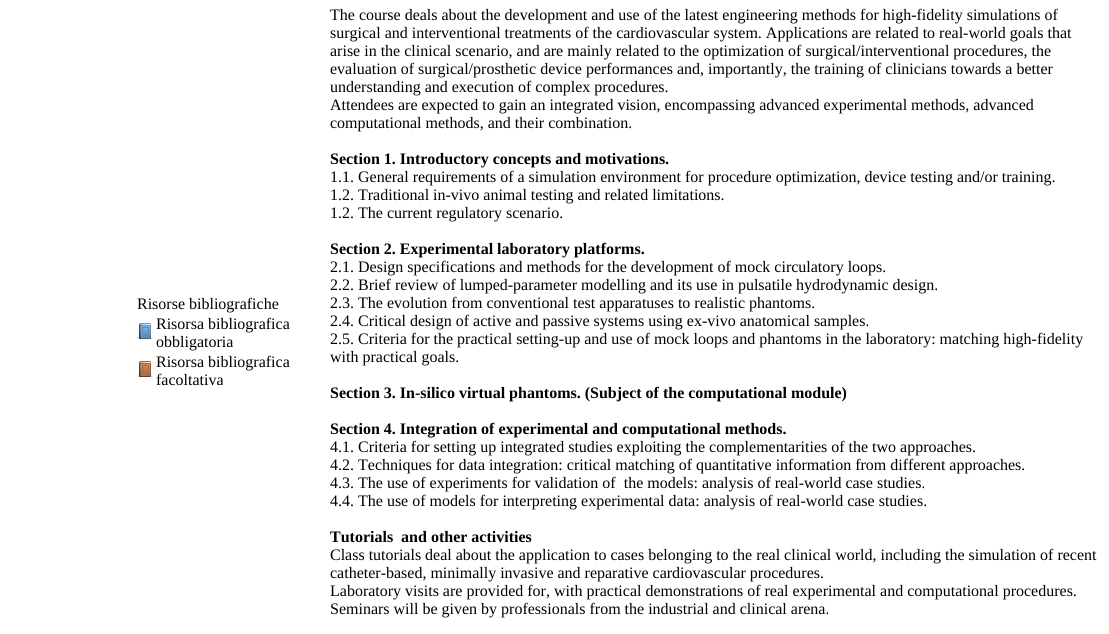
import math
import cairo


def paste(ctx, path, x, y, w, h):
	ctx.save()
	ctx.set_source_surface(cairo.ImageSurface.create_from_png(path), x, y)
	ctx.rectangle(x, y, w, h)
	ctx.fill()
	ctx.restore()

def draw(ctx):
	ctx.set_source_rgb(1, 1, 1)
	ctx.paint()
	ctx.select_font_face('Liberation Serif')
	ctx.set_font_size(16)
	ctx.set_source_rgb(0, 0, 0)
	ctx.move_to(137, 309)
	ctx.show_text('Risorse bibliografiche')
	paste(ctx, 'media/1.png', 137, 323, 16, 16)
	ctx.move_to(156, 329)
	ctx.show_text('Risorsa bibliografica')
	ctx.move_to(156, 347)
	ctx.show_text('obbligatoria')
	paste(ctx, 'media/2.png', 137, 361, 16, 16)
	for x, y, s in [
		(156, 367, 'Risorsa bibliografica'),
		(156, 385, 'facoltativa'),
		(330, 20, 'The course deals about the development and use of the latest engineering methods for high-fidelity simulations of'),
		(330, 38, 'surgical and interventional treatments of the cardiovascular system. Applications are related to real-world goals that'),
		(330, 56, 'arise in the clinical scenario, and are mainly related to the optimization of surgical/interventional procedures, the'),
		(330, 74, 'evaluation of surgical/prosthetic device performances and, importantly, the training of clinicians towards a better'),
		(330, 92, 'understanding and execution of complex procedures.'),
		(330, 110, 'Attendees are expected to gain an integrated vision, encompassing advanced experimental methods, advanced'),
		(330, 128, 'computational methods, and their combination.'),
	]:
		ctx.move_to(x, y)
		ctx.show_text(s)
	ctx.select_font_face('Liberation Serif', cairo.FONT_SLANT_NORMAL, cairo.FONT_WEIGHT_BOLD)
	ctx.move_to(330, 164)
	ctx.show_text('Section 1. Introductory concepts and motivations.')
	ctx.select_font_face('Liberation Serif')
	for x, y, s in [
		(330, 182, '1.1. General requirements of a simulation environment for procedure optimization, device testing and/or training.'),
		(330, 200, '1.2. Traditional in-vivo animal testing and related limitations.'),
		(330, 218, '1.2. The current regulatory scenario.'),
	]:
		ctx.move_to(x, y)
		ctx.show_text(s)
	ctx.select_font_face('Liberation Serif', cairo.FONT_SLANT_NORMAL, cairo.FONT_WEIGHT_BOLD)
	ctx.move_to(330, 254)
	ctx.show_text('Section 2. Experimental laboratory platforms.')
	ctx.select_font_face('Liberation Serif')
	for x, y, s in [
		(330, 272, '2.1. Design specifications and methods for the development of mock circulatory loops.'),
		(330, 290, '2.2. Brief review of lumped-parameter modelling and its use in pulsatile hydrodynamic design.'),
		(330, 308, '2.3. The evolution from conventional test apparatuses to realistic phantoms.'),
		(330, 326, '2.4. Critical design of active and passive systems using ex-vivo anatomical samples.'),
		(330, 344, '2.5. Criteria for the practical setting-up and use of mock loops and phantoms in the laboratory: matching high-fidelity'),
		(330, 362, 'with practical goals.'),
	]:
		ctx.move_to(x, y)
		ctx.show_text(s)
	ctx.select_font_face('Liberation Serif', cairo.FONT_SLANT_NORMAL, cairo.FONT_WEIGHT_BOLD)
	ctx.move_to(330, 398)
	ctx.show_text('Section 3. In-silico virtual phantoms. (Subject of the computational module)')
	ctx.move_to(330, 434)
	ctx.show_text('Section 4. Integration of experimental and computational methods.')
	ctx.select_font_face('Liberation Serif')
	for x, y, s in [
		(330, 452, '4.1. Criteria for setting up integrated studies exploiting the complementarities of the two approaches.'),
		(330, 470, '4.2. Techniques for data integration: critical matching of quantitative information from different approaches.'),
		(330, 488, '4.3. The use of experiments for validation of  the models: analysis of real-world case studies.'),
		(330, 506, '4.4. The use of models for interpreting experimental data: analysis of real-world case studies.'),
	]:
		ctx.move_to(x, y)
		ctx.show_text(s)
	ctx.select_font_face('Liberation Serif', cairo.FONT_SLANT_NORMAL, cairo.FONT_WEIGHT_BOLD)
	ctx.move_to(330, 542)
	ctx.show_text('Tutorials  and other activities')
	ctx.select_font_face('Liberation Serif')
	for x, y, s in [
		(330, 560, 'Class tutorials deal about the application to cases belonging to the real clinical world, including the simulation of recent'),
		(330, 578, 'catheter-based, minimally invasive and reparative cardiovascular procedures.'),
		(330, 596, 'Laboratory visits are provided for, with practical demonstrations of real experimental and computational procedures.'),
		(330, 614, 'Seminars will be given by professionals from the industrial and clinical arena.'),
	]:
		ctx.move_to(x, y)
		ctx.show_text(s)


surface = cairo.ImageSurface(cairo.FORMAT_RGB24, 1109, 634)
ctx = cairo.Context(surface)
options = cairo.FontOptions()
options.set_hint_metrics(cairo.HINT_METRICS_OFF)
options.set_hint_style(cairo.HINT_STYLE_NONE)
ctx.set_font_options(options)
ctx.set_miter_limit(4)
draw(ctx)
surface.write_to_png('image.png')
